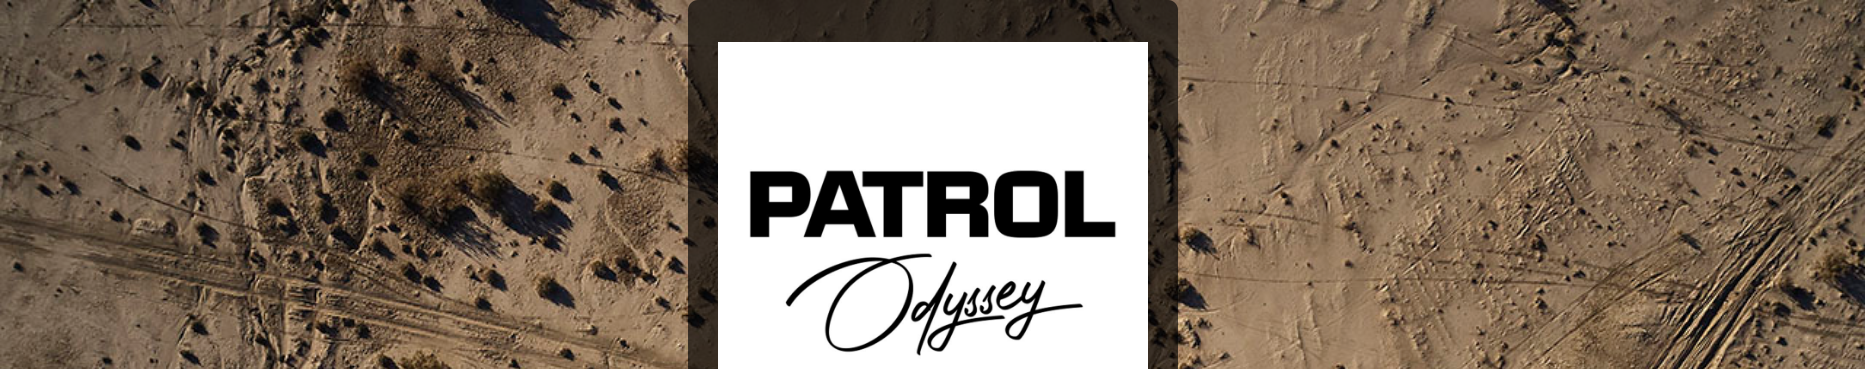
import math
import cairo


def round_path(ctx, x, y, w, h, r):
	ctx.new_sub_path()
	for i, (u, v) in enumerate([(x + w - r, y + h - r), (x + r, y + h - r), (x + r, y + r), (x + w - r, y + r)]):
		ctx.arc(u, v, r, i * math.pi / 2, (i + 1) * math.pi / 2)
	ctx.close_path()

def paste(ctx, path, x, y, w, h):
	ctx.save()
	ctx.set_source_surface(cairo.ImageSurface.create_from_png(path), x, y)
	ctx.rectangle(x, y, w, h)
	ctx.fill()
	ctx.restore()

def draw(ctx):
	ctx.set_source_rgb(1, 1, 1)
	ctx.paint()
	paste(ctx, 'media/1.png', 0, 0, 1865, 369)
	ctx.set_source_rgba(0, 0, 0, 0.66)
	round_path(ctx, 688, 0, 490, 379, 10)
	ctx.fill()
	paste(ctx, 'media/2.png', 718, 42, 430, 327)


surface = cairo.ImageSurface(cairo.FORMAT_RGB24, 1865, 369)
ctx = cairo.Context(surface)
options = cairo.FontOptions()
options.set_hint_metrics(cairo.HINT_METRICS_OFF)
options.set_hint_style(cairo.HINT_STYLE_NONE)
ctx.set_font_options(options)
ctx.set_miter_limit(4)
draw(ctx)
surface.write_to_png('image.png')
